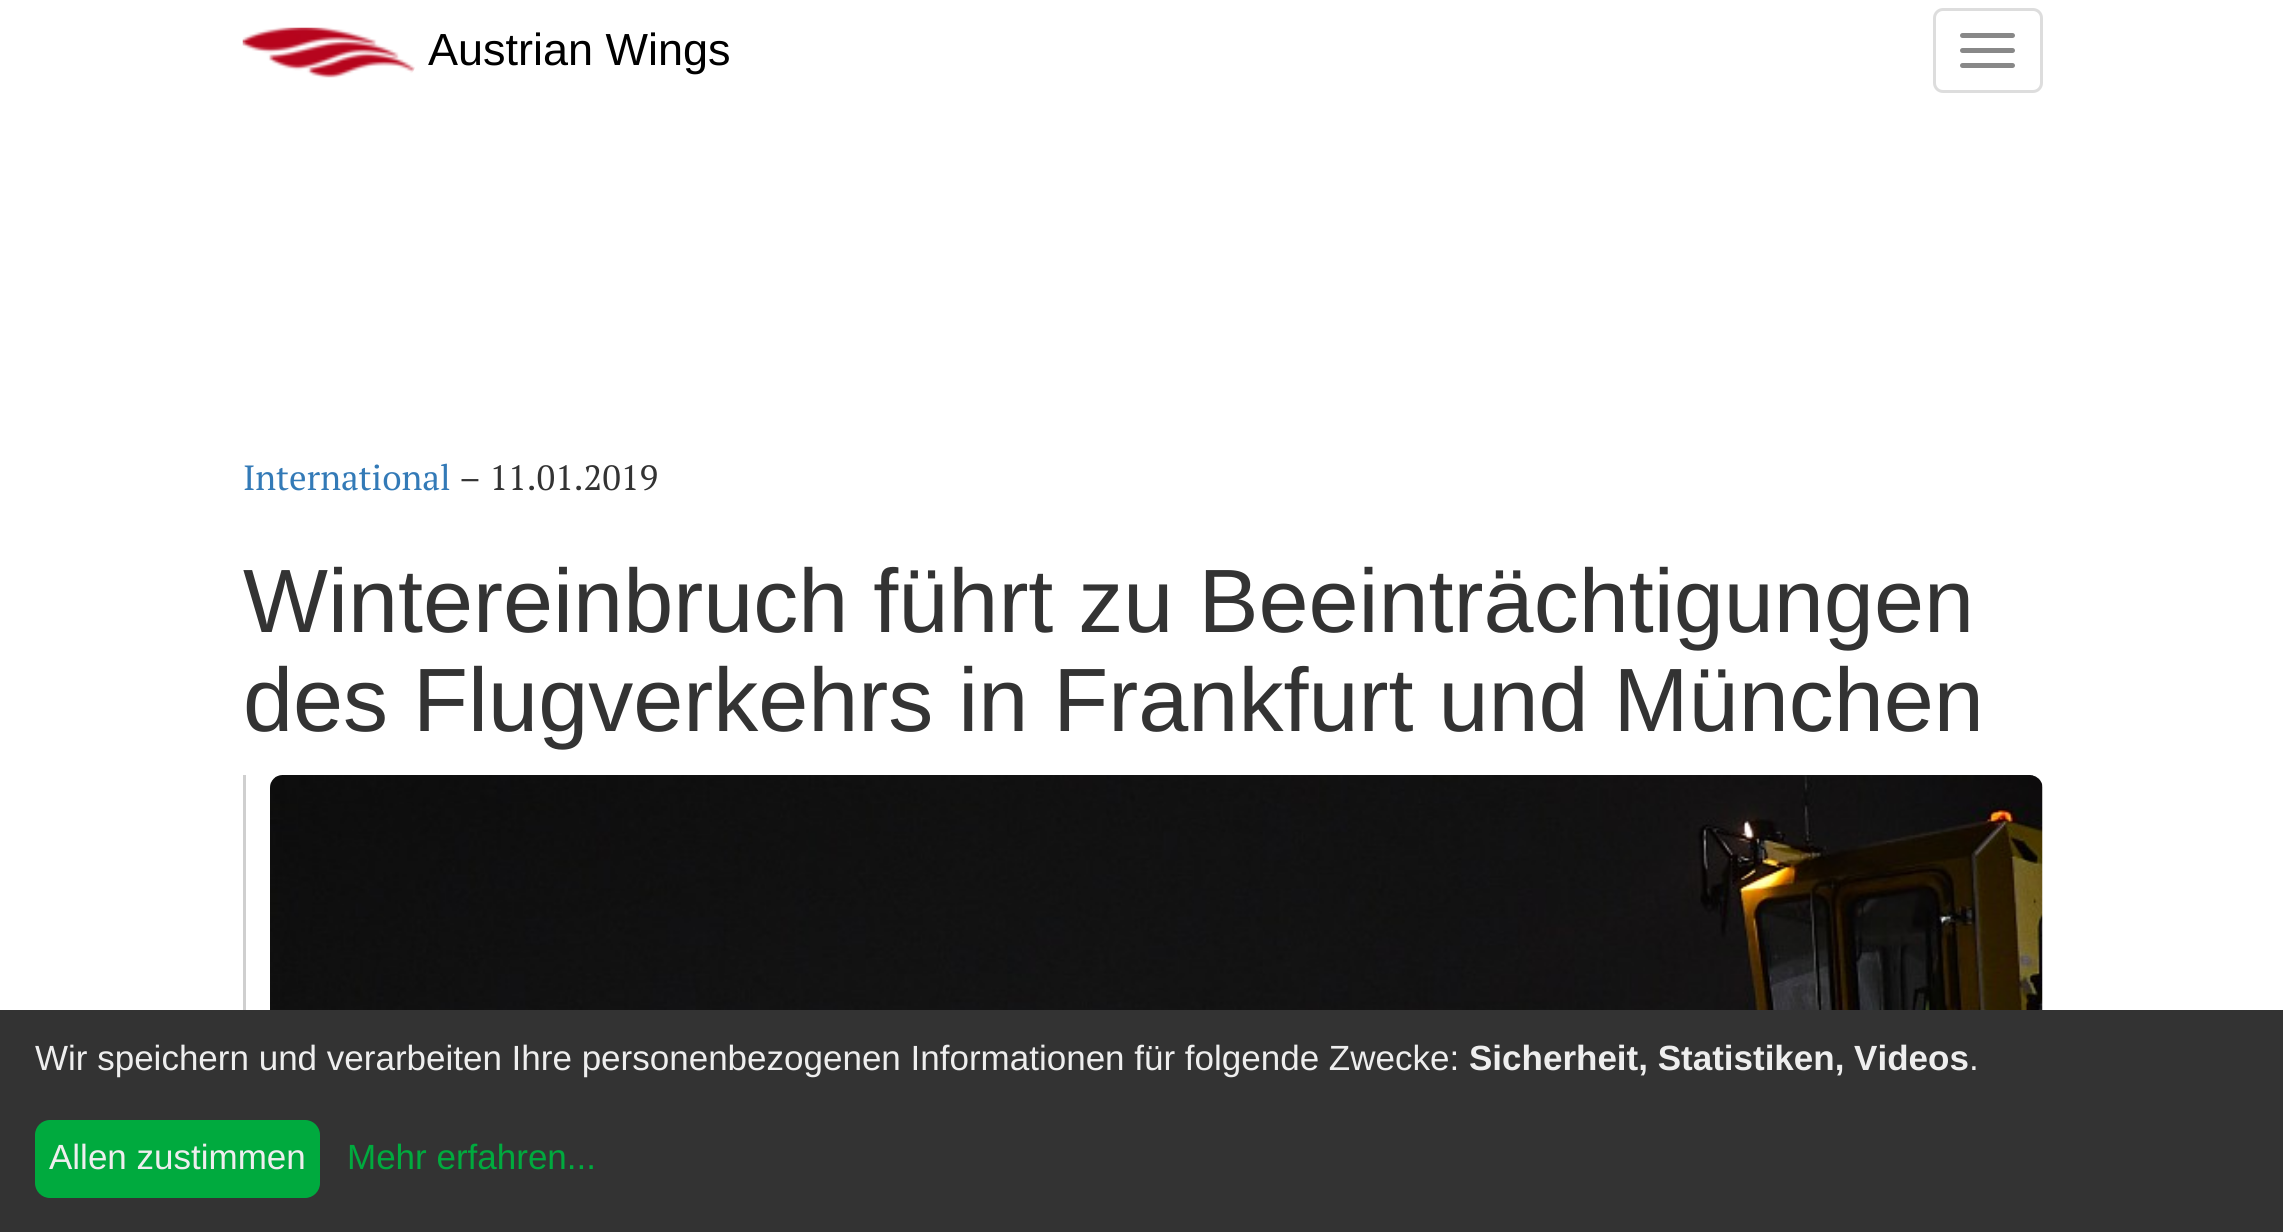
import math
import cairo


def round_path(ctx, x, y, w, h, r):
	ctx.new_sub_path()
	for i, (u, v) in enumerate([(x + w - r, y + h - r), (x + r, y + h - r), (x + r, y + r), (x + w - r, y + r)]):
		ctx.arc(u, v, r, i * math.pi / 2, (i + 1) * math.pi / 2)
	ctx.close_path()

def paste(ctx, path, x, y, w, h):
	ctx.save()
	ctx.set_source_surface(cairo.ImageSurface.create_from_png(path), x, y)
	ctx.rectangle(x, y, w, h)
	ctx.fill()
	ctx.restore()

def draw(ctx):
	ctx.set_source_rgb(1, 1, 1)
	ctx.paint()
	paste(ctx, 'media/1.png', 242, 27, 173, 51)
	ctx.select_font_face('Liberation Sans')
	ctx.set_font_size(45)
	ctx.set_source_rgb(0, 0, 0)
	ctx.move_to(428, 65)
	ctx.show_text('Austrian Wings')
	round_path(ctx, 1934.5, 9.5, 107, 82, 8.5)
	ctx.set_source_rgb(0.867, 0.867, 0.867)
	ctx.set_line_width(3)
	ctx.stroke()
	ctx.set_source_rgb(0.533, 0.533, 0.533)
	round_path(ctx, 1960, 33, 55, 5, 2.5)
	ctx.fill()
	round_path(ctx, 1960, 48, 55, 5, 2.5)
	ctx.fill()
	round_path(ctx, 1960, 63, 55, 5, 2.5)
	ctx.fill()
	ctx.select_font_face('PT Serif')
	ctx.set_font_size(35)
	ctx.set_source_rgb(0.2, 0.478, 0.718)
	ctx.move_to(243, 490)
	ctx.show_text('International')
	ctx.set_source_rgb(0.2, 0.2, 0.2)
	ctx.move_to(459, 490)
	ctx.show_text('– 11.01.2019')
	ctx.select_font_face('Liberation Sans')
	ctx.set_font_size(90)
	ctx.move_to(243, 632)
	ctx.show_text('Wintereinbruch führt zu Beeinträchtigungen')
	ctx.move_to(243, 731)
	ctx.show_text('des Flugverkehrs in Frankfurt und München')
	ctx.set_source_rgb(0.812, 0.812, 0.812)
	ctx.rectangle(243, 775, 3, 235)
	ctx.fill()
	paste(ctx, 'media/2.png', 270, 775, 1773, 235)
	ctx.set_source_rgb(0.2, 0.2, 0.2)
	ctx.rectangle(0, 1010, 2283, 222)
	ctx.fill()
	ctx.set_font_size(35)
	ctx.set_source_rgb(0.933, 0.933, 0.933)
	ctx.move_to(35, 1070)
	ctx.show_text('Wir speichern und verarbeiten Ihre personenbezogenen Informationen für folgende Zwecke:')
	ctx.select_font_face('Liberation Sans', cairo.FONT_SLANT_NORMAL, cairo.FONT_WEIGHT_BOLD)
	ctx.move_to(1469, 1070)
	ctx.show_text('Sicherheit, Statistiken, Videos')
	ctx.select_font_face('Liberation Sans')
	ctx.move_to(1969, 1070)
	ctx.show_text('.')
	ctx.set_source_rgb(0, 0.667, 0.243)
	round_path(ctx, 35, 1120, 285, 78, 15)
	ctx.fill()
	ctx.set_source_rgb(0.933, 0.933, 0.933)
	ctx.move_to(49, 1169)
	ctx.show_text('Allen zustimmen')
	ctx.set_source_rgb(0, 0.667, 0.243)
	ctx.move_to(347, 1169)
	ctx.show_text('Mehr erfahren...')


surface = cairo.ImageSurface(cairo.FORMAT_RGB24, 2283, 1232)
ctx = cairo.Context(surface)
options = cairo.FontOptions()
options.set_hint_metrics(cairo.HINT_METRICS_OFF)
options.set_hint_style(cairo.HINT_STYLE_NONE)
ctx.set_font_options(options)
ctx.set_miter_limit(4)
draw(ctx)
surface.write_to_png('image.png')
